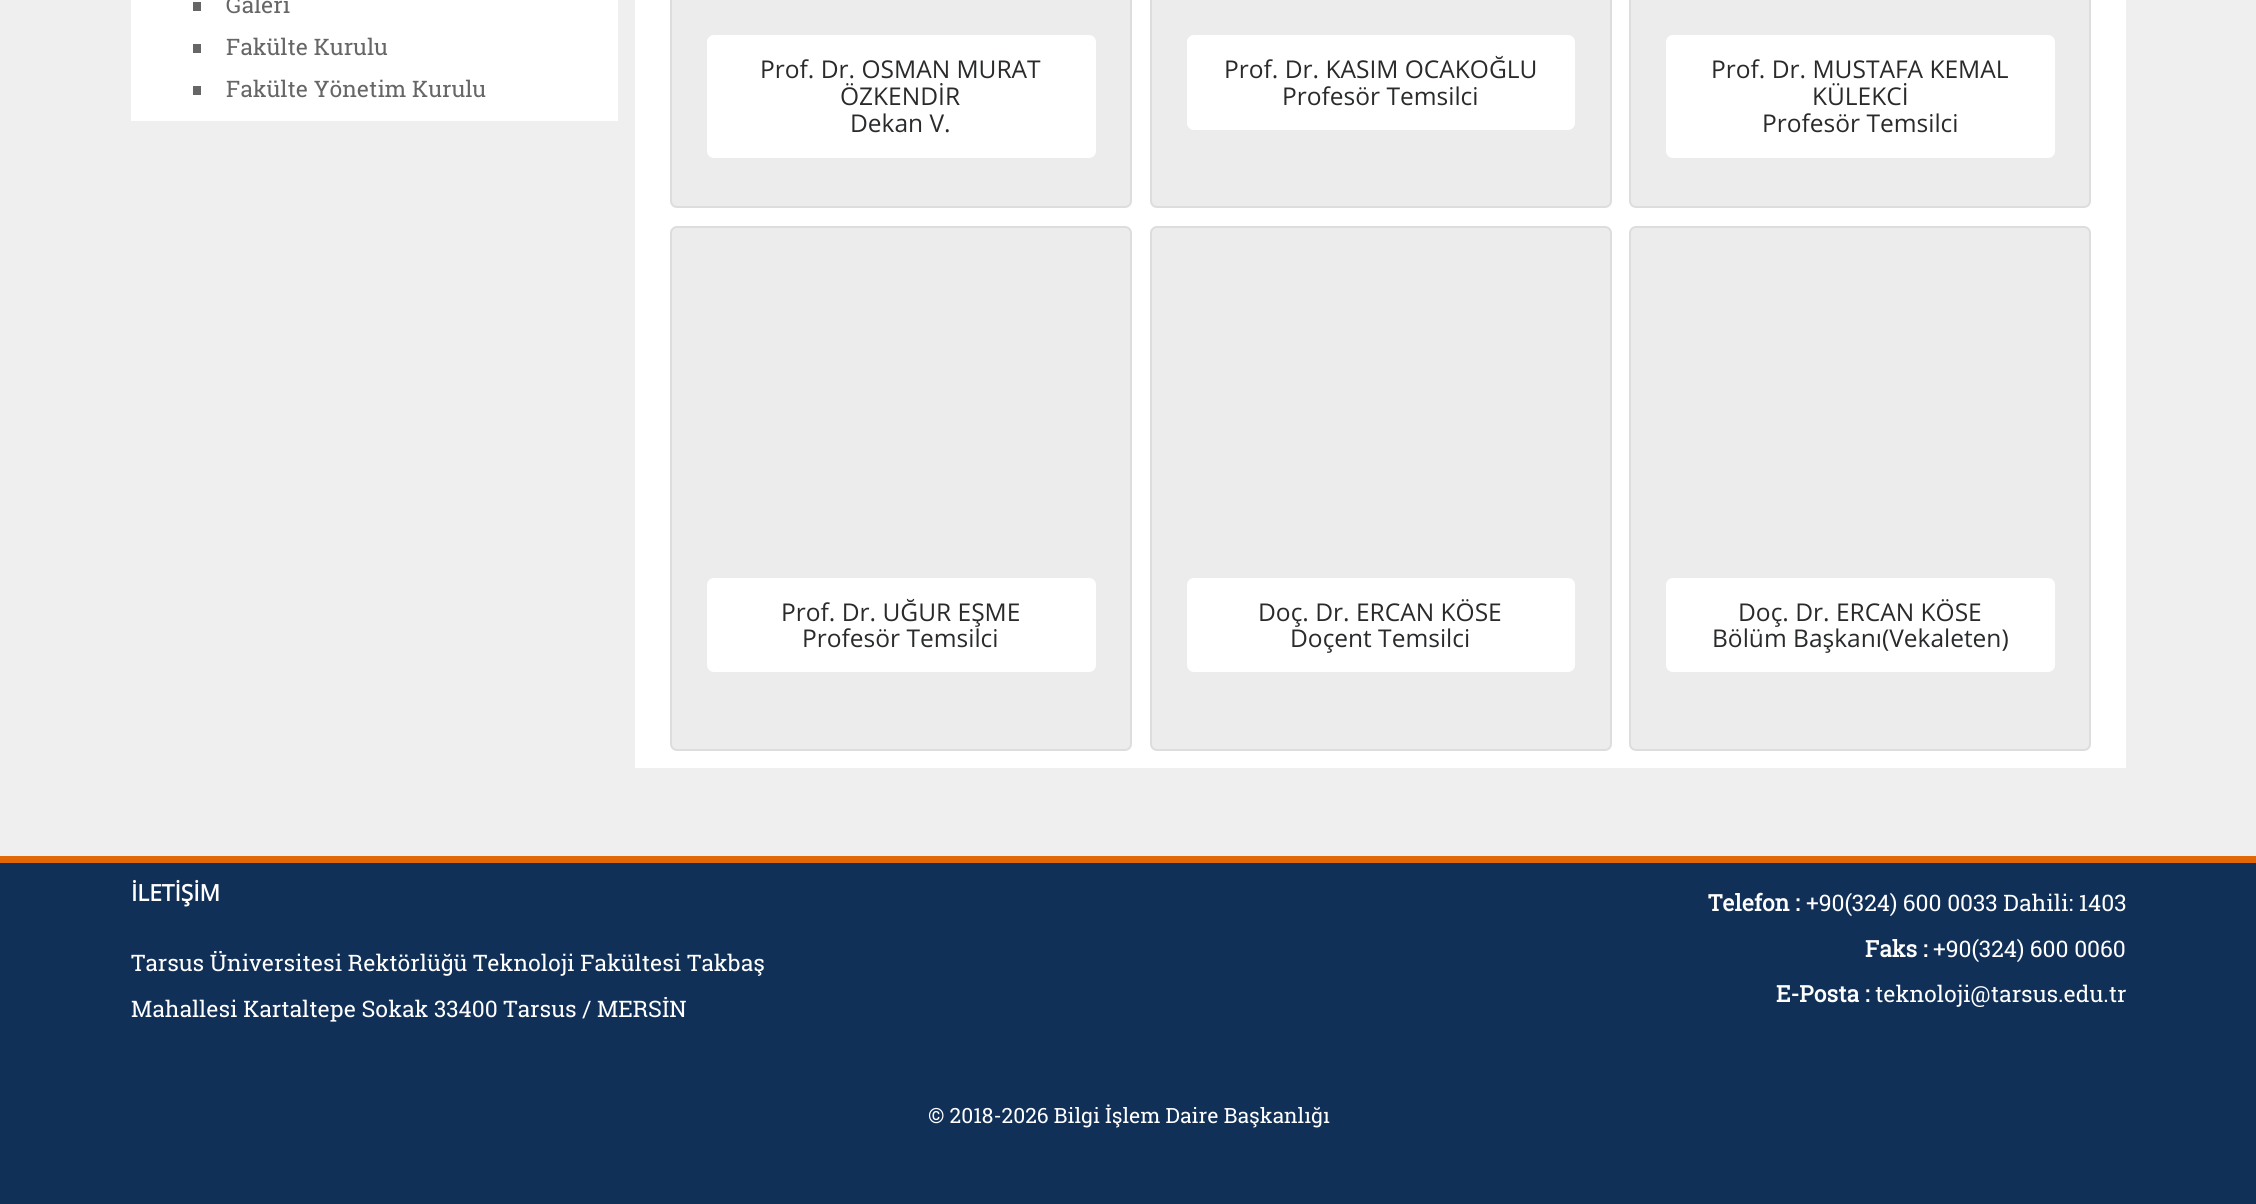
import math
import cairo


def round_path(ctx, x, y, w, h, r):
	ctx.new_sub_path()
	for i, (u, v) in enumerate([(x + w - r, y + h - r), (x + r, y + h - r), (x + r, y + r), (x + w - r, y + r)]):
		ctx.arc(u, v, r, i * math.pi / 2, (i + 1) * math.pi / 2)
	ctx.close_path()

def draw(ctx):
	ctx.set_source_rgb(0.937, 0.937, 0.937)
	ctx.paint()
	ctx.set_source_rgb(1, 1, 1)
	ctx.rectangle(131, 0, 487, 121)
	ctx.fill()
	ctx.set_source_rgb(0.4, 0.4, 0.4)
	ctx.rectangle(193, 2, 8, 9)
	ctx.fill()
	ctx.select_font_face('Roboto Slab')
	ctx.set_font_size(22.75)
	ctx.move_to(226, 13)
	ctx.show_text('Galeri')
	ctx.rectangle(193, 44, 8, 9)
	ctx.fill()
	ctx.move_to(226, 55)
	ctx.show_text('Fakülte Kurulu')
	ctx.rectangle(193, 86, 8, 9)
	ctx.fill()
	ctx.move_to(226, 97)
	ctx.show_text('Fakülte Yönetim Kurulu')
	ctx.set_source_rgb(1, 1, 1)
	ctx.rectangle(635, 0, 1491, 768)
	ctx.fill()
	ctx.set_source_rgb(0.922, 0.922, 0.922)
	round_path(ctx, 671, -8, 460, 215, 6)
	ctx.fill_preserve()
	ctx.set_source_rgb(0.867, 0.867, 0.867)
	ctx.stroke()
	ctx.set_source_rgb(1, 1, 1)
	round_path(ctx, 707, 35, 389, 123, 7)
	ctx.fill()
	ctx.select_font_face('Open Sans')
	ctx.set_font_size(24.5)
	ctx.set_source_rgb(0.157, 0.165, 0.173)
	for x, y, s in [
		(760, 78, 'Prof. Dr. OSMAN MURAT'),
		(840, 105, 'ÖZKENDİR'),
		(850, 132, 'Dekan V.'),
	]:
		ctx.move_to(x, y)
		ctx.show_text(s)
	ctx.set_source_rgb(0.922, 0.922, 0.922)
	round_path(ctx, 1151, -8, 460, 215, 6)
	ctx.fill_preserve()
	ctx.set_source_rgb(0.867, 0.867, 0.867)
	ctx.stroke()
	ctx.set_source_rgb(1, 1, 1)
	round_path(ctx, 1187, 35, 388, 95, 7)
	ctx.fill()
	ctx.set_source_rgb(0.157, 0.165, 0.173)
	ctx.move_to(1224, 78)
	ctx.show_text('Prof. Dr. KASIM OCAKOĞLU')
	ctx.move_to(1282, 105)
	ctx.show_text('Profesör Temsilci')
	ctx.set_source_rgb(0.922, 0.922, 0.922)
	round_path(ctx, 1630, -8, 460, 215, 6)
	ctx.fill_preserve()
	ctx.set_source_rgb(0.867, 0.867, 0.867)
	ctx.stroke()
	ctx.set_source_rgb(1, 1, 1)
	round_path(ctx, 1666, 35, 389, 123, 7)
	ctx.fill()
	ctx.set_source_rgb(0.157, 0.165, 0.173)
	for x, y, s in [
		(1711, 78, 'Prof. Dr. MUSTAFA KEMAL'),
		(1812, 105, 'KÜLEKCİ'),
		(1762, 132, 'Profesör Temsilci'),
	]:
		ctx.move_to(x, y)
		ctx.show_text(s)
	ctx.set_source_rgb(0.922, 0.922, 0.922)
	round_path(ctx, 671, 227, 460, 523, 6)
	ctx.fill_preserve()
	ctx.set_source_rgb(0.867, 0.867, 0.867)
	ctx.stroke()
	ctx.set_source_rgb(1, 1, 1)
	round_path(ctx, 707, 578, 389, 94, 7)
	ctx.fill()
	ctx.set_source_rgb(0.157, 0.165, 0.173)
	ctx.move_to(781, 621)
	ctx.show_text('Prof. Dr. UĞUR EŞME')
	ctx.move_to(802, 647)
	ctx.show_text('Profesör Temsilci')
	ctx.set_source_rgb(0.922, 0.922, 0.922)
	round_path(ctx, 1151, 227, 460, 523, 6)
	ctx.fill_preserve()
	ctx.set_source_rgb(0.867, 0.867, 0.867)
	ctx.stroke()
	ctx.set_source_rgb(1, 1, 1)
	round_path(ctx, 1187, 578, 388, 94, 7)
	ctx.fill()
	ctx.set_source_rgb(0.157, 0.165, 0.173)
	ctx.move_to(1258, 621)
	ctx.show_text('Doç. Dr. ERCAN KÖSE')
	ctx.move_to(1290, 647)
	ctx.show_text('Doçent Temsilci')
	ctx.set_source_rgb(0.922, 0.922, 0.922)
	round_path(ctx, 1630, 227, 460, 523, 6)
	ctx.fill_preserve()
	ctx.set_source_rgb(0.867, 0.867, 0.867)
	ctx.stroke()
	ctx.set_source_rgb(1, 1, 1)
	round_path(ctx, 1666, 578, 389, 94, 7)
	ctx.fill()
	ctx.set_source_rgb(0.157, 0.165, 0.173)
	ctx.move_to(1738, 621)
	ctx.show_text('Doç. Dr. ERCAN KÖSE')
	ctx.move_to(1712, 647)
	ctx.show_text('Bölüm Başkanı(Vekaleten)')
	ctx.set_source_rgb(0.067, 0.188, 0.345)
	ctx.rectangle(0, 863, 2256, 341)
	ctx.fill()
	ctx.set_source_rgb(0.882, 0.408, 0.024)
	ctx.rectangle(0, 856, 2256, 7)
	ctx.fill()
	ctx.select_font_face('Open Sans', cairo.FONT_SLANT_NORMAL, cairo.FONT_WEIGHT_BOLD)
	ctx.set_font_size(22.75)
	ctx.set_source_rgb(1, 1, 1)
	ctx.move_to(131, 901)
	ctx.show_text('İLETİŞİM')
	ctx.select_font_face('Roboto Slab')
	ctx.move_to(131, 971)
	ctx.show_text('Tarsus Üniversitesi Rektörlüğü Teknoloji Fakültesi Takbaş')
	ctx.move_to(131, 1017)
	ctx.show_text('Mahallesi Kartaltepe Sokak 33400 Tarsus / MERSİN')
	ctx.select_font_face('Roboto Slab', cairo.FONT_SLANT_NORMAL, cairo.FONT_WEIGHT_BOLD)
	ctx.move_to(1708, 911)
	ctx.show_text('Telefon :')
	ctx.select_font_face('Roboto Slab')
	ctx.move_to(1806, 911)
	ctx.show_text('+90(324) 600 0033 Dahili: 1403')
	ctx.select_font_face('Roboto Slab', cairo.FONT_SLANT_NORMAL, cairo.FONT_WEIGHT_BOLD)
	ctx.move_to(1865, 957)
	ctx.show_text('Faks :')
	ctx.select_font_face('Roboto Slab')
	ctx.move_to(1933, 957)
	ctx.show_text('+90(324) 600 0060')
	ctx.select_font_face('Roboto Slab', cairo.FONT_SLANT_NORMAL, cairo.FONT_WEIGHT_BOLD)
	ctx.move_to(1776, 1002)
	ctx.show_text('E-Posta :')
	ctx.select_font_face('Roboto Slab')
	ctx.move_to(1875, 1002)
	ctx.show_text('teknoloji@tarsus.edu.tr')
	ctx.set_font_size(21)
	ctx.move_to(928, 1123)
	ctx.show_text('© 2018-2026 Bilgi İşlem Daire Başkanlığı')


surface = cairo.ImageSurface(cairo.FORMAT_RGB24, 2256, 1204)
ctx = cairo.Context(surface)
options = cairo.FontOptions()
options.set_hint_metrics(cairo.HINT_METRICS_OFF)
options.set_hint_style(cairo.HINT_STYLE_NONE)
ctx.set_font_options(options)
ctx.set_miter_limit(4)
draw(ctx)
surface.write_to_png('image.png')
